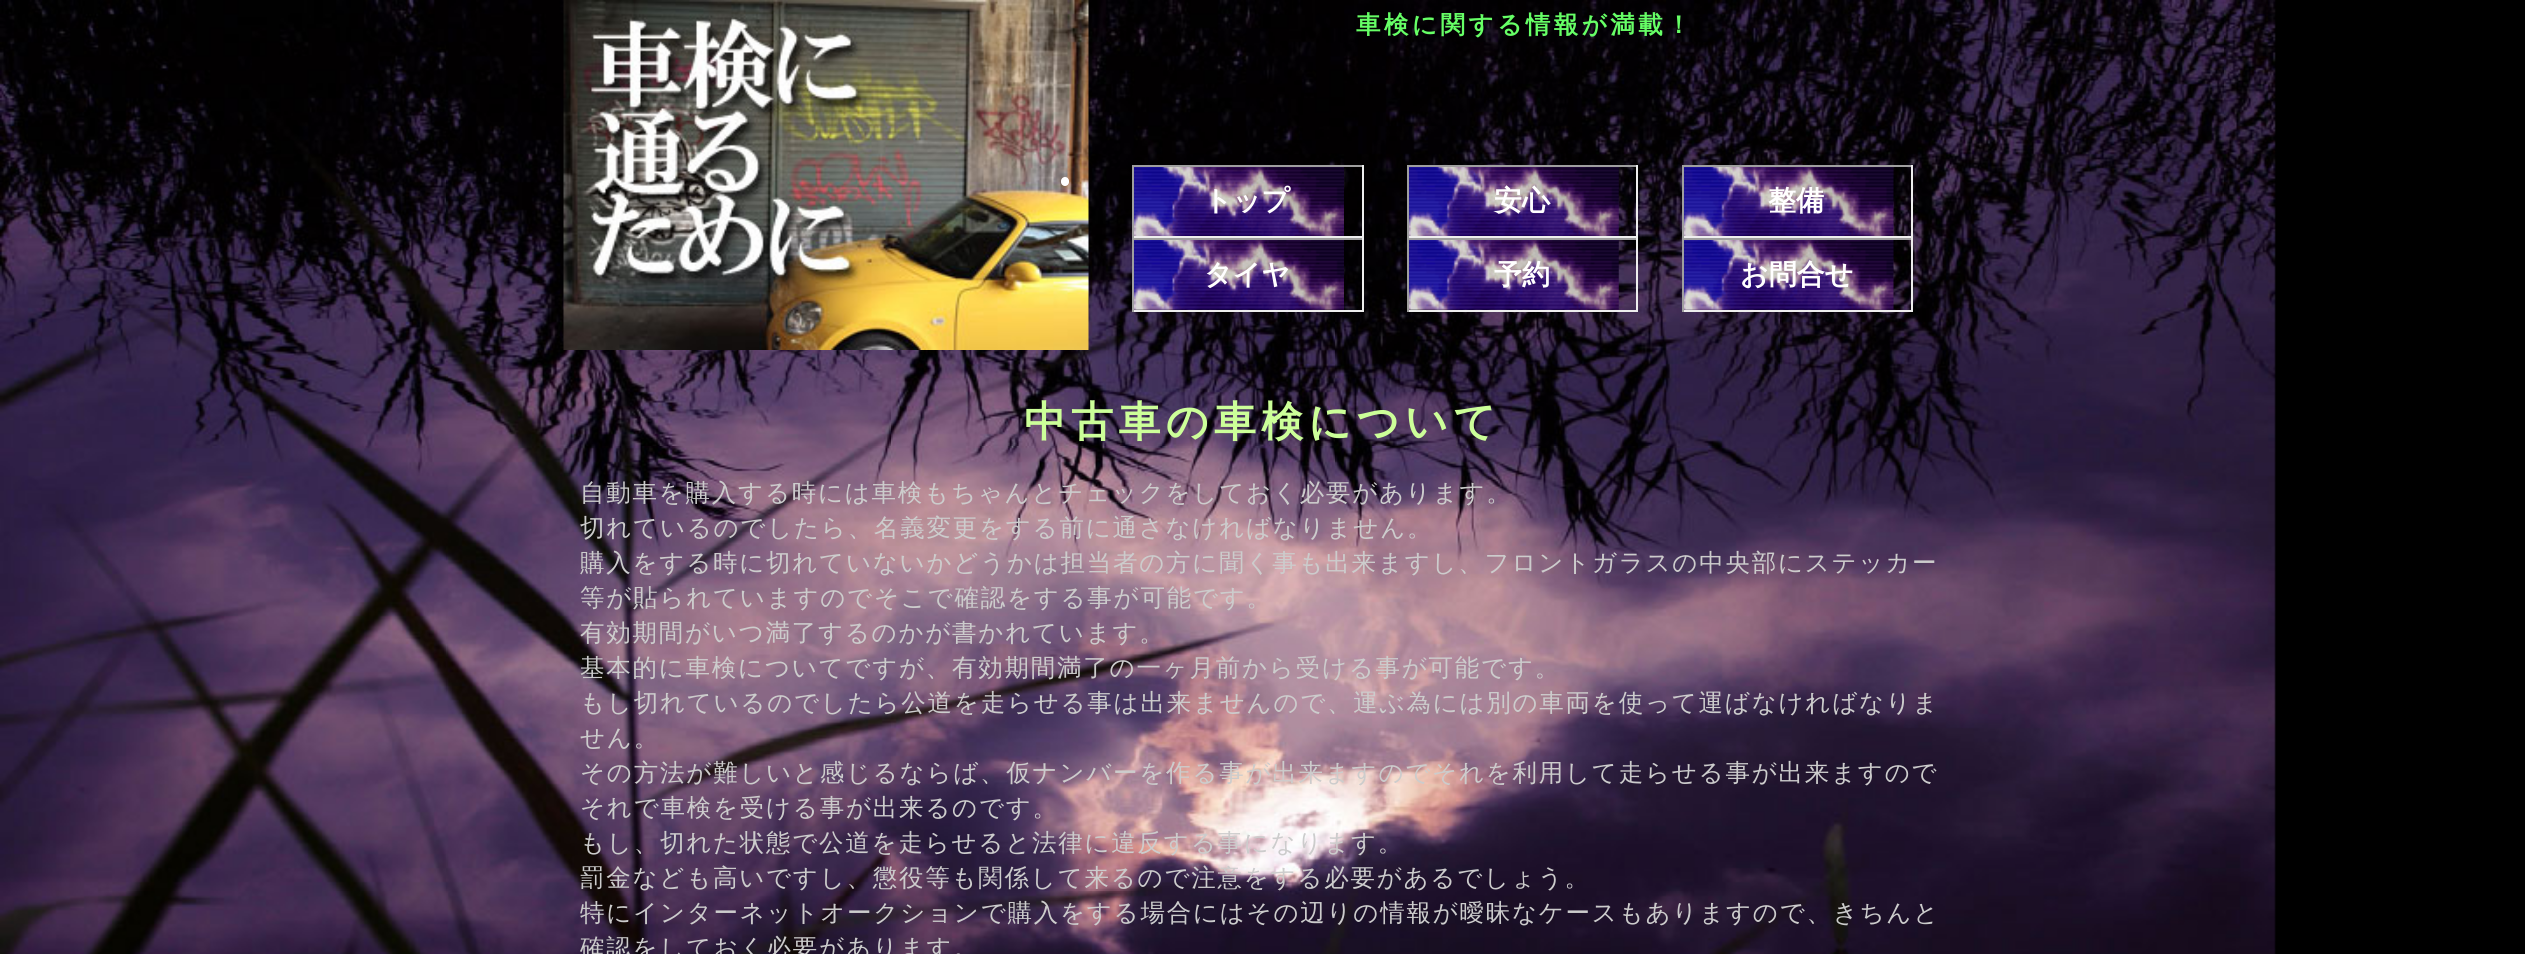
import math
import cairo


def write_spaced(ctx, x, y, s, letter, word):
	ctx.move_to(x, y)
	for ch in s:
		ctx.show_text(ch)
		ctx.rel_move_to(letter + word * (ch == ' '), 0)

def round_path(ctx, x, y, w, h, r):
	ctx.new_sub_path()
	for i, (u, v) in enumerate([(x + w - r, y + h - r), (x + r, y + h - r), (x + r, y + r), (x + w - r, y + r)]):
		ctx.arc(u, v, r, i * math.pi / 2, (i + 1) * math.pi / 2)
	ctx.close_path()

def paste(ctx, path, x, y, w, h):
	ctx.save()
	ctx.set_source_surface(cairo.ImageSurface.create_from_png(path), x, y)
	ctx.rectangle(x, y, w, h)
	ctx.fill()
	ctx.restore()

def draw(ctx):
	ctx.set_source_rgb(0, 0, 0)
	ctx.paint()
	paste(ctx, 'media/1.png', 0, 0, 2276, 954)
	paste(ctx, 'media/2.png', 563, 0, 526, 350)
	ctx.select_font_face('WenQuanYi Zen Hei', cairo.FONT_SLANT_NORMAL, cairo.FONT_WEIGHT_BOLD)
	ctx.set_font_size(24.5)
	ctx.set_source_rgb(0.4, 1, 0.4)
	write_spaced(ctx, 1356, 33, '車検に関する情報が満載！', 3.5, 0)
	ctx.set_source_rgb(1, 1, 1)
	round_path(ctx, 1061, 177, 8, 9, 4)
	ctx.fill()
	paste(ctx, 'media/3.png', 1134, 167, 210, 69)
	ctx.set_source_rgb(0.624, 0.624, 0.624)
	ctx.rectangle(1132, 165, 231, 2)
	ctx.fill()
	ctx.set_source_rgb(0.933, 0.933, 0.933)
	ctx.rectangle(1362, 165, 2, 73)
	ctx.rectangle(1132, 236, 231, 2)
	ctx.fill()
	ctx.set_source_rgb(0.624, 0.624, 0.624)
	ctx.rectangle(1132, 165, 2, 73)
	ctx.fill()
	ctx.set_font_size(28)
	ctx.set_source_rgb(1, 1, 1)
	ctx.move_to(1204, 210)
	ctx.show_text('トップ')
	paste(ctx, 'media/4.png', 1409, 167, 210, 69)
	ctx.set_source_rgb(0.624, 0.624, 0.624)
	ctx.rectangle(1407, 165, 231, 2)
	ctx.fill()
	ctx.set_source_rgb(0.933, 0.933, 0.933)
	ctx.rectangle(1636, 165, 2, 73)
	ctx.rectangle(1407, 236, 231, 2)
	ctx.fill()
	ctx.set_source_rgb(0.624, 0.624, 0.624)
	ctx.rectangle(1407, 165, 2, 73)
	ctx.fill()
	ctx.set_source_rgb(1, 1, 1)
	ctx.move_to(1494, 210)
	ctx.show_text('安心')
	paste(ctx, 'media/5.png', 1684, 167, 210, 69)
	ctx.set_source_rgb(0.624, 0.624, 0.624)
	ctx.rectangle(1682, 165, 231, 2)
	ctx.fill()
	ctx.set_source_rgb(0.933, 0.933, 0.933)
	ctx.rectangle(1911, 165, 2, 73)
	ctx.rectangle(1682, 236, 231, 2)
	ctx.fill()
	ctx.set_source_rgb(0.624, 0.624, 0.624)
	ctx.rectangle(1682, 165, 2, 73)
	ctx.fill()
	ctx.set_source_rgb(1, 1, 1)
	ctx.move_to(1768, 210)
	ctx.show_text('整備')
	paste(ctx, 'media/6.png', 1134, 240, 210, 70)
	ctx.set_source_rgb(0.624, 0.624, 0.624)
	ctx.rectangle(1132, 238, 231, 2)
	ctx.fill()
	ctx.set_source_rgb(0.933, 0.933, 0.933)
	ctx.rectangle(1362, 238, 2, 74)
	ctx.rectangle(1132, 310, 231, 2)
	ctx.fill()
	ctx.set_source_rgb(0.624, 0.624, 0.624)
	ctx.rectangle(1132, 238, 2, 74)
	ctx.fill()
	ctx.set_source_rgb(1, 1, 1)
	ctx.move_to(1204, 284)
	ctx.show_text('タイヤ')
	paste(ctx, 'media/7.png', 1409, 240, 210, 70)
	ctx.set_source_rgb(0.624, 0.624, 0.624)
	ctx.rectangle(1407, 238, 231, 2)
	ctx.fill()
	ctx.set_source_rgb(0.933, 0.933, 0.933)
	ctx.rectangle(1636, 238, 2, 74)
	ctx.rectangle(1407, 310, 231, 2)
	ctx.fill()
	ctx.set_source_rgb(0.624, 0.624, 0.624)
	ctx.rectangle(1407, 238, 2, 74)
	ctx.fill()
	ctx.set_source_rgb(1, 1, 1)
	ctx.move_to(1494, 284)
	ctx.show_text('予約')
	paste(ctx, 'media/8.png', 1684, 240, 210, 70)
	ctx.set_source_rgb(0.624, 0.624, 0.624)
	ctx.rectangle(1682, 238, 231, 2)
	ctx.fill()
	ctx.set_source_rgb(0.933, 0.933, 0.933)
	ctx.rectangle(1911, 238, 2, 74)
	ctx.rectangle(1682, 310, 231, 2)
	ctx.fill()
	ctx.set_source_rgb(0.624, 0.624, 0.624)
	ctx.rectangle(1682, 238, 2, 74)
	ctx.fill()
	ctx.set_source_rgb(1, 1, 1)
	ctx.move_to(1740, 284)
	ctx.show_text('お問合せ')
	ctx.set_font_size(42)
	ctx.set_source_rgb(0.8, 1, 0.6)
	write_spaced(ctx, 1024, 436, '中古車の車検について', 5.25, 0)
	ctx.select_font_face('WenQuanYi Zen Hei Medium')
	ctx.set_font_size(24.5)
	ctx.set_source_rgb(0.8, 0.8, 0.8)
	for x, y, s in [
		(580, 501, '自動車を購入する時には車検もちゃんとチェックをしておく必要があります。'),
		(580, 536, '切れているのでしたら、名義変更をする前に通さなければなりません。'),
		(580, 571, '購入をする時に切れていないかどうかは担当者の方に聞く事も出来ますし、フロントガラスの中央部にステッカー'),
		(580, 606, '等が貼られていますのでそこで確認をする事が可能です。'),
		(580, 641, '有効期間がいつ満了するのかが書かれています。'),
		(580, 676, '基本的に車検についてですが、有効期間満了の一ヶ月前から受ける事が可能です。'),
		(580, 711, 'もし切れているのでしたら公道を走らせる事は出来ませんので、運ぶ為には別の車両を使って運ばなければなりま'),
		(580, 746, 'せん。'),
		(580, 781, 'その方法が難しいと感じるならば、仮ナンバーを作る事が出来ますのでそれを利用して走らせる事が出来ますので'),
		(580, 816, 'それで車検を受ける事が出来るのです。'),
		(580, 851, 'もし、切れた状態で公道を走らせると法律に違反する事になります。'),
		(580, 886, '罰金なども高いですし、懲役等も関係して来るので注意をする必要があるでしょう。'),
		(580, 921, '特にインターネットオークションで購入をする場合にはその辺りの情報が曖昧なケースもありますので、きちんと'),
		(580, 956, '確認をしておく必要があります。'),
	]:
		write_spaced(ctx, x, y, s, 1.75, 0)


surface = cairo.ImageSurface(cairo.FORMAT_RGB24, 2525, 954)
ctx = cairo.Context(surface)
options = cairo.FontOptions()
options.set_hint_metrics(cairo.HINT_METRICS_OFF)
options.set_hint_style(cairo.HINT_STYLE_NONE)
ctx.set_font_options(options)
ctx.set_miter_limit(4)
draw(ctx)
surface.write_to_png('image.png')
